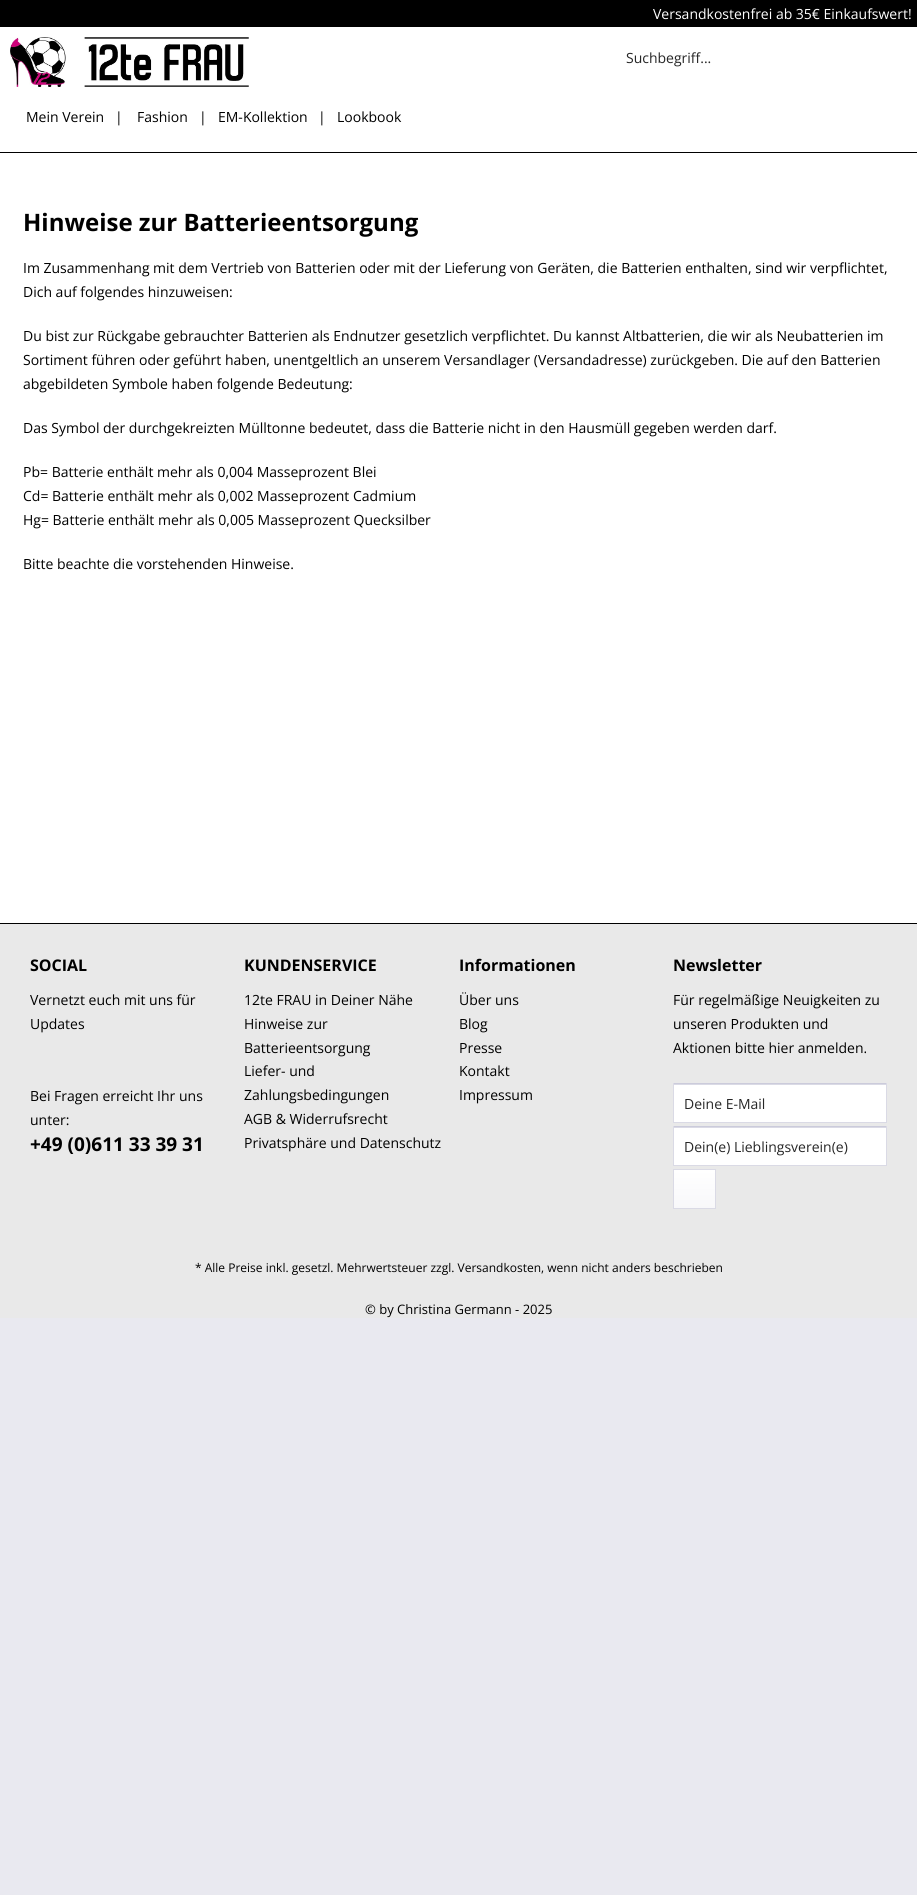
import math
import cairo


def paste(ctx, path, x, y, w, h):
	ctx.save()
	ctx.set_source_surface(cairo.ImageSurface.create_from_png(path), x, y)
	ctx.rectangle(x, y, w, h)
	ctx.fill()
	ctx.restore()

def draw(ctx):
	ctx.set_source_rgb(0.914, 0.914, 0.941)
	ctx.paint()
	ctx.set_source_rgb(1, 1, 1)
	ctx.rectangle(0, 27, 917, 896)
	ctx.fill()
	ctx.set_source_rgb(0, 0, 0)
	ctx.rectangle(0, 152, 917, 1)
	ctx.rectangle(0, 0, 917, 27)
	ctx.fill()
	ctx.select_font_face('Open Sans')
	ctx.set_font_size(14)
	ctx.set_source_rgb(1, 1, 1)
	ctx.move_to(653, 19)
	ctx.show_text('Versandkostenfrei ab 35€ Einkaufswert!')
	ctx.set_source_rgb(0.149, 0.149, 0.149)
	ctx.move_to(626, 63)
	ctx.show_text('Suchbegriff...')
	paste(ctx, 'media/1.png', 10, 37, 239, 50)
	ctx.set_source_rgb(0, 0, 0)
	for x, y, s in [
		(26, 122, 'Mein Verein'),
		(115, 122, '|'),
		(137, 122, 'Fashion'),
		(199, 122, '|'),
		(218, 122, 'EM-Kollektion'),
		(318, 122, '|'),
		(337, 122, 'Lookbook'),
	]:
		ctx.move_to(x, y)
		ctx.show_text(s)
	ctx.select_font_face('Open Sans', cairo.FONT_SLANT_NORMAL, cairo.FONT_WEIGHT_BOLD)
	ctx.set_font_size(24)
	ctx.move_to(23, 231)
	ctx.show_text('Hinweise zur Batterieentsorgung')
	ctx.select_font_face('Open Sans')
	ctx.set_font_size(14)
	for x, y, s in [
		(23, 273, 'Im Zusammenhang mit dem Vertrieb von Batterien oder mit der Lieferung von Geräten, die Batterien enthalten, sind wir verpflichtet,'),
		(23, 297, 'Dich auf folgendes hinzuweisen:'),
		(23, 341, 'Du bist zur Rückgabe gebrauchter Batterien als Endnutzer gesetzlich verpflichtet. Du kannst Altbatterien, die wir als Neubatterien im'),
		(23, 365, 'Sortiment führen oder geführt haben, unentgeltlich an unserem Versandlager (Versandadresse) zurückgeben. Die auf den Batterien'),
		(23, 389, 'abgebildeten Symbole haben folgende Bedeutung:'),
		(23, 433, 'Das Symbol der durchgekreizten Mülltonne bedeutet, dass die Batterie nicht in den Hausmüll gegeben werden darf.'),
		(23, 477, 'Pb= Batterie enthält mehr als 0,004 Masseprozent Blei'),
		(23, 501, 'Cd= Batterie enthält mehr als 0,002 Masseprozent Cadmium'),
		(23, 525, 'Hg= Batterie enthält mehr als 0,005 Masseprozent Quecksilber'),
		(23, 569, 'Bitte beachte die vorstehenden Hinweise.'),
	]:
		ctx.move_to(x, y)
		ctx.show_text(s)
	ctx.set_source_rgb(0.914, 0.914, 0.914)
	ctx.rectangle(0, 924, 917, 394)
	ctx.fill()
	ctx.set_source_rgb(0, 0, 0)
	ctx.rectangle(0, 923, 917, 1)
	ctx.fill()
	ctx.select_font_face('Open Sans', cairo.FONT_SLANT_NORMAL, cairo.FONT_WEIGHT_BOLD)
	ctx.set_font_size(16)
	ctx.move_to(30, 971)
	ctx.show_text('SOCIAL')
	ctx.select_font_face('Open Sans')
	ctx.set_font_size(14)
	for x, y, s in [
		(30, 1005, 'Vernetzt euch mit uns für'),
		(30, 1029, 'Updates'),
		(30, 1101, 'Bei Fragen erreicht Ihr uns'),
		(30, 1125, 'unter:'),
	]:
		ctx.move_to(x, y)
		ctx.show_text(s)
	ctx.select_font_face('Open Sans', cairo.FONT_SLANT_NORMAL, cairo.FONT_WEIGHT_BOLD)
	ctx.set_font_size(19)
	ctx.move_to(30, 1151)
	ctx.show_text('+49 (0)611 33 39 31')
	ctx.set_font_size(16)
	ctx.move_to(244, 971)
	ctx.show_text('KUNDENSERVICE')
	ctx.select_font_face('Open Sans')
	ctx.set_font_size(14)
	for x, y, s in [
		(244, 1005, '12te FRAU in Deiner Nähe'),
		(244, 1029, 'Hinweise zur'),
		(244, 1053, 'Batterieentsorgung'),
		(244, 1076, 'Liefer- und'),
		(244, 1100, 'Zahlungsbedingungen'),
		(244, 1124, 'AGB & Widerrufsrecht'),
		(244, 1148, 'Privatsphäre und Datenschutz'),
	]:
		ctx.move_to(x, y)
		ctx.show_text(s)
	ctx.select_font_face('Open Sans', cairo.FONT_SLANT_NORMAL, cairo.FONT_WEIGHT_BOLD)
	ctx.set_font_size(16)
	ctx.move_to(459, 971)
	ctx.show_text('Informationen')
	ctx.select_font_face('Open Sans')
	ctx.set_font_size(14)
	for x, y, s in [
		(459, 1005, 'Über uns'),
		(459, 1029, 'Blog'),
		(459, 1053, 'Presse'),
		(459, 1076, 'Kontakt'),
		(459, 1100, 'Impressum'),
	]:
		ctx.move_to(x, y)
		ctx.show_text(s)
	ctx.select_font_face('Open Sans', cairo.FONT_SLANT_NORMAL, cairo.FONT_WEIGHT_BOLD)
	ctx.set_font_size(16)
	ctx.move_to(673, 971)
	ctx.show_text('Newsletter')
	ctx.select_font_face('Open Sans')
	ctx.set_font_size(14)
	for x, y, s in [
		(673, 1005, 'Für regelmäßige Neuigkeiten zu'),
		(673, 1029, 'unseren Produkten und'),
		(673, 1053, 'Aktionen bitte hier anmelden.'),
	]:
		ctx.move_to(x, y)
		ctx.show_text(s)
	ctx.set_source_rgb(1, 1, 1)
	ctx.rectangle(674, 1085, 212, 37)
	ctx.fill()
	ctx.set_source_rgb(0.855, 0.855, 0.898)
	ctx.rectangle(674, 1084, 212, 1)
	ctx.fill()
	ctx.set_source_rgb(0.796, 0.796, 0.859)
	ctx.rectangle(673, 1083, 214, 1)
	ctx.fill()
	ctx.set_source_rgb(0.855, 0.855, 0.898)
	ctx.rectangle(886, 1083, 1, 40)
	ctx.rectangle(673, 1122, 214, 1)
	ctx.rectangle(673, 1083, 1, 40)
	ctx.fill()
	ctx.set_source_rgb(0.149, 0.149, 0.149)
	ctx.move_to(684, 1109)
	ctx.show_text('Deine E-Mail')
	ctx.set_source_rgb(1, 1, 1)
	ctx.rectangle(674, 1128, 212, 37)
	ctx.fill()
	ctx.set_source_rgb(0.855, 0.855, 0.898)
	ctx.rectangle(674, 1127, 212, 1)
	ctx.fill()
	ctx.set_source_rgb(0.796, 0.796, 0.859)
	ctx.rectangle(673, 1126, 214, 1)
	ctx.fill()
	ctx.set_source_rgb(0.855, 0.855, 0.898)
	ctx.rectangle(886, 1126, 1, 40)
	ctx.rectangle(673, 1165, 214, 1)
	ctx.rectangle(673, 1126, 1, 40)
	ctx.fill()
	ctx.set_source_rgb(0.149, 0.149, 0.149)
	ctx.move_to(684, 1152)
	ctx.show_text('Dein(e) Lieblingsverein(e)')
	gradient = cairo.LinearGradient(695, 1170, 695, 1208)
	gradient.add_color_stop_rgba(0, 1, 1, 1, 1)
	gradient.add_color_stop_rgba(1, 0.973, 0.973, 0.98, 1)
	ctx.set_source(gradient)
	ctx.rectangle(674, 1170, 41, 38)
	ctx.fill()
	ctx.rectangle(673.5, 1169.5, 42, 39)
	ctx.set_source_rgb(0.855, 0.855, 0.898)
	ctx.set_line_width(1)
	ctx.stroke()
	ctx.set_font_size(12)
	ctx.set_source_rgb(0, 0, 0)
	ctx.move_to(195, 1272)
	ctx.show_text('* Alle Preise inkl. gesetzl. Mehrwertsteuer zzgl. Versandkosten, wenn nicht anders beschrieben')
	ctx.set_font_size(13)
	ctx.move_to(365, 1314)
	ctx.show_text('© by Christina Germann - 2025')


surface = cairo.ImageSurface(cairo.FORMAT_RGB24, 917, 1895)
ctx = cairo.Context(surface)
options = cairo.FontOptions()
options.set_hint_metrics(cairo.HINT_METRICS_OFF)
options.set_hint_style(cairo.HINT_STYLE_NONE)
ctx.set_font_options(options)
ctx.set_miter_limit(4)
draw(ctx)
surface.write_to_png('image.png')
